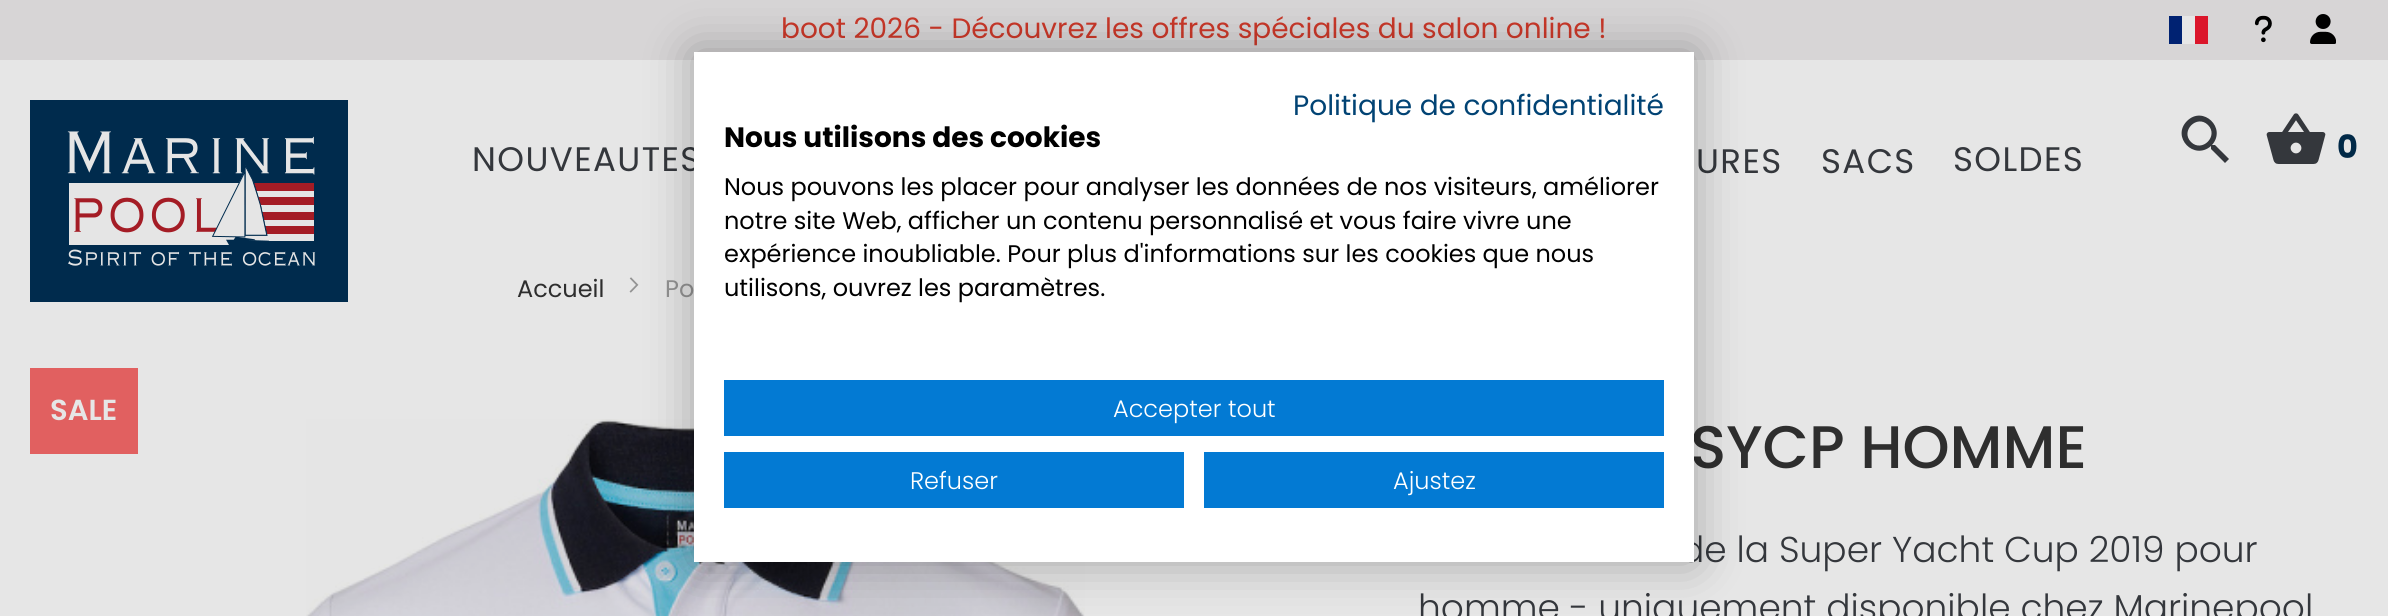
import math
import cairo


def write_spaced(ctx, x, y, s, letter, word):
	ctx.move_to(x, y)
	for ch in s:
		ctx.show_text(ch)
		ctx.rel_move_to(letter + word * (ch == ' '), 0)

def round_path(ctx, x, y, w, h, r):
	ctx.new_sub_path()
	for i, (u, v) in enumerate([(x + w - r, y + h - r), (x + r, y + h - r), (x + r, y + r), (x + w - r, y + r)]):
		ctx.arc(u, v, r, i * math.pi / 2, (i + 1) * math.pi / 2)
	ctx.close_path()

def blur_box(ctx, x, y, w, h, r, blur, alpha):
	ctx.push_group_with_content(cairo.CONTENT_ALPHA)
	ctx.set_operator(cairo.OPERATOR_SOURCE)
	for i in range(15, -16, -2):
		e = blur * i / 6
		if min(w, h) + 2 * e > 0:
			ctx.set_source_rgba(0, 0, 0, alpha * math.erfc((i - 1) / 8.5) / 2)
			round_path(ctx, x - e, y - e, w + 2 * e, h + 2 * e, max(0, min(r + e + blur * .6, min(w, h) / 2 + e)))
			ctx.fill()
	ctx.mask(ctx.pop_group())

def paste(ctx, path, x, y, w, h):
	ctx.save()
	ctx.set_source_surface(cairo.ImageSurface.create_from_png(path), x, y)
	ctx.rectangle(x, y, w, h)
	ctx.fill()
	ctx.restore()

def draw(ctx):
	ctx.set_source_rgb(0.902, 0.902, 0.902)
	ctx.paint()
	ctx.set_source_rgb(0.843, 0.835, 0.839)
	ctx.rectangle(0, 0, 2388, 60)
	ctx.fill()
	ctx.select_font_face('Poppins')
	ctx.set_font_size(28)
	ctx.set_source_rgb(0.792, 0.22, 0.161)
	ctx.move_to(781, 38)
	ctx.show_text('boot 2026 - Découvrez les offres spéciales du salon online !')
	ctx.set_source_rgb(0, 0.133, 0.447)
	ctx.rectangle(2169, 16, 13, 28)
	ctx.fill()
	ctx.set_source_rgb(0.902, 0.902, 0.902)
	ctx.rectangle(2182, 16, 13, 28)
	ctx.fill()
	ctx.set_source_rgb(0.859, 0.086, 0.169)
	ctx.rectangle(2195, 16, 13, 28)
	ctx.fill()
	paste(ctx, 'media/1.png', 2254, 15, 18, 28)
	paste(ctx, 'media/2.png', 2310, 14, 26, 30)
	paste(ctx, 'media/3.png', 30, 100, 318, 202)
	ctx.set_font_size(34)
	ctx.set_source_rgb(0.204, 0.216, 0.235)
	for x, y, s in [
		(472, 171, 'NOUVEAUTES'),
		(1696, 173, 'URES'),
		(1821, 173, 'SACS'),
		(1953, 171, 'SOLDES'),
	]:
		write_spaced(ctx, x, y, s, 1.4, 0)
	ctx.new_path()
	ctx.move_to(2191, 142)
	ctx.curve_to(2202, 153, 2219, 136, 2208, 125)
	ctx.curve_to(2197, 114, 2180, 131, 2191, 142)
	ctx.close_path()
	ctx.move_to(2215, 145)
	ctx.line_to(2229, 159)
	ctx.line_to(2225, 163)
	ctx.line_to(2211, 149)
	ctx.line_to(2211, 147)
	ctx.line_to(2211, 146)
	ctx.curve_to(2194, 161, 2171, 137, 2187, 121)
	ctx.curve_to(2203, 105, 2227, 128, 2212, 145)
	ctx.line_to(2213, 145)
	ctx.close_path()
	ctx.fill()
	paste(ctx, 'media/4.png', 2266, 113, 60, 51)
	ctx.select_font_face('Poppins', cairo.FONT_SLANT_NORMAL, cairo.FONT_WEIGHT_BOLD)
	ctx.set_font_size(32)
	ctx.set_source_rgb(0.004, 0.161, 0.278)
	ctx.move_to(2337, 158)
	ctx.show_text('0')
	ctx.select_font_face('Poppins')
	ctx.set_font_size(24)
	ctx.set_source_rgb(0.18, 0.18, 0.18)
	ctx.move_to(517, 297)
	ctx.show_text('Accueil')
	paste(ctx, 'media/5.png', 629, 277, 10, 16)
	ctx.set_source_rgb(0.576, 0.576, 0.576)
	ctx.move_to(665, 297)
	ctx.show_text('Po')
	ctx.set_source_rgb(0.882, 0.376, 0.376)
	ctx.rectangle(30, 368, 108, 86)
	ctx.fill()
	ctx.select_font_face('Poppins SemiBold')
	ctx.set_font_size(29)
	ctx.set_source_rgb(0.902, 0.902, 0.902)
	ctx.move_to(50, 420)
	ctx.show_text('SALE')
	paste(ctx, 'media/6.png', 306, 419, 779, 197)
	ctx.select_font_face('Poppins Medium')
	ctx.set_font_size(60)
	ctx.set_source_rgb(0.18, 0.18, 0.18)
	ctx.move_to(1690, 468)
	ctx.show_text('SYCP HOMME')
	ctx.select_font_face('Poppins Light')
	ctx.set_font_size(36)
	ctx.set_source_rgb(0.204, 0.216, 0.235)
	ctx.move_to(1680, 562)
	ctx.show_text('de la Super Yacht Cup 2019 pour')
	ctx.move_to(1418, 620)
	ctx.show_text('homme - uniquement disponible chez Marinepool')
	ctx.set_source_rgb(0, 0, 0)
	blur_box(ctx, 694, 52, 1000, 510, 0, 24, 0.3)
	ctx.set_source_rgb(1, 1, 1)
	ctx.rectangle(694, 52, 1000, 510)
	ctx.fill()
	ctx.select_font_face('Poppins')
	ctx.set_font_size(28)
	ctx.set_source_rgb(0.004, 0.263, 0.455)
	ctx.move_to(1293, 115)
	ctx.show_text('Politique de confidentialité')
	ctx.select_font_face('Poppins', cairo.FONT_SLANT_NORMAL, cairo.FONT_WEIGHT_BOLD)
	ctx.set_source_rgb(0, 0, 0)
	ctx.move_to(724, 147)
	ctx.show_text('Nous utilisons des cookies')
	ctx.select_font_face('Poppins')
	ctx.set_font_size(24)
	for x, y, s in [
		(724, 195, 'Nous pouvons les placer pour analyser les données de nos visiteurs, améliorer'),
		(724, 229, 'notre site Web, afficher un contenu personnalisé et vous faire vivre une'),
		(724, 262, 'expérience inoubliable. Pour plus d\'informations sur les cookies que nous'),
		(724, 296, 'utilisons, ouvrez les paramètres.'),
	]:
		ctx.move_to(x, y)
		ctx.show_text(s)
	ctx.set_source_rgb(0.012, 0.478, 0.827)
	ctx.rectangle(724, 380, 940, 56)
	ctx.fill()
	ctx.select_font_face('Poppins Light')
	ctx.set_source_rgb(1, 1, 1)
	ctx.move_to(1113, 417)
	ctx.show_text('Accepter tout')
	ctx.set_source_rgb(0.012, 0.478, 0.827)
	ctx.rectangle(724, 452, 460, 56)
	ctx.fill()
	ctx.set_source_rgb(1, 1, 1)
	ctx.move_to(910, 489)
	ctx.show_text('Refuser')
	ctx.set_source_rgb(0.012, 0.478, 0.827)
	ctx.rectangle(1204, 452, 460, 56)
	ctx.fill()
	ctx.set_source_rgb(1, 1, 1)
	ctx.move_to(1393, 489)
	ctx.show_text('Ajustez')


surface = cairo.ImageSurface(cairo.FORMAT_RGB24, 2388, 616)
ctx = cairo.Context(surface)
options = cairo.FontOptions()
options.set_hint_metrics(cairo.HINT_METRICS_OFF)
options.set_hint_style(cairo.HINT_STYLE_NONE)
ctx.set_font_options(options)
ctx.set_miter_limit(4)
draw(ctx)
surface.write_to_png('image.png')
